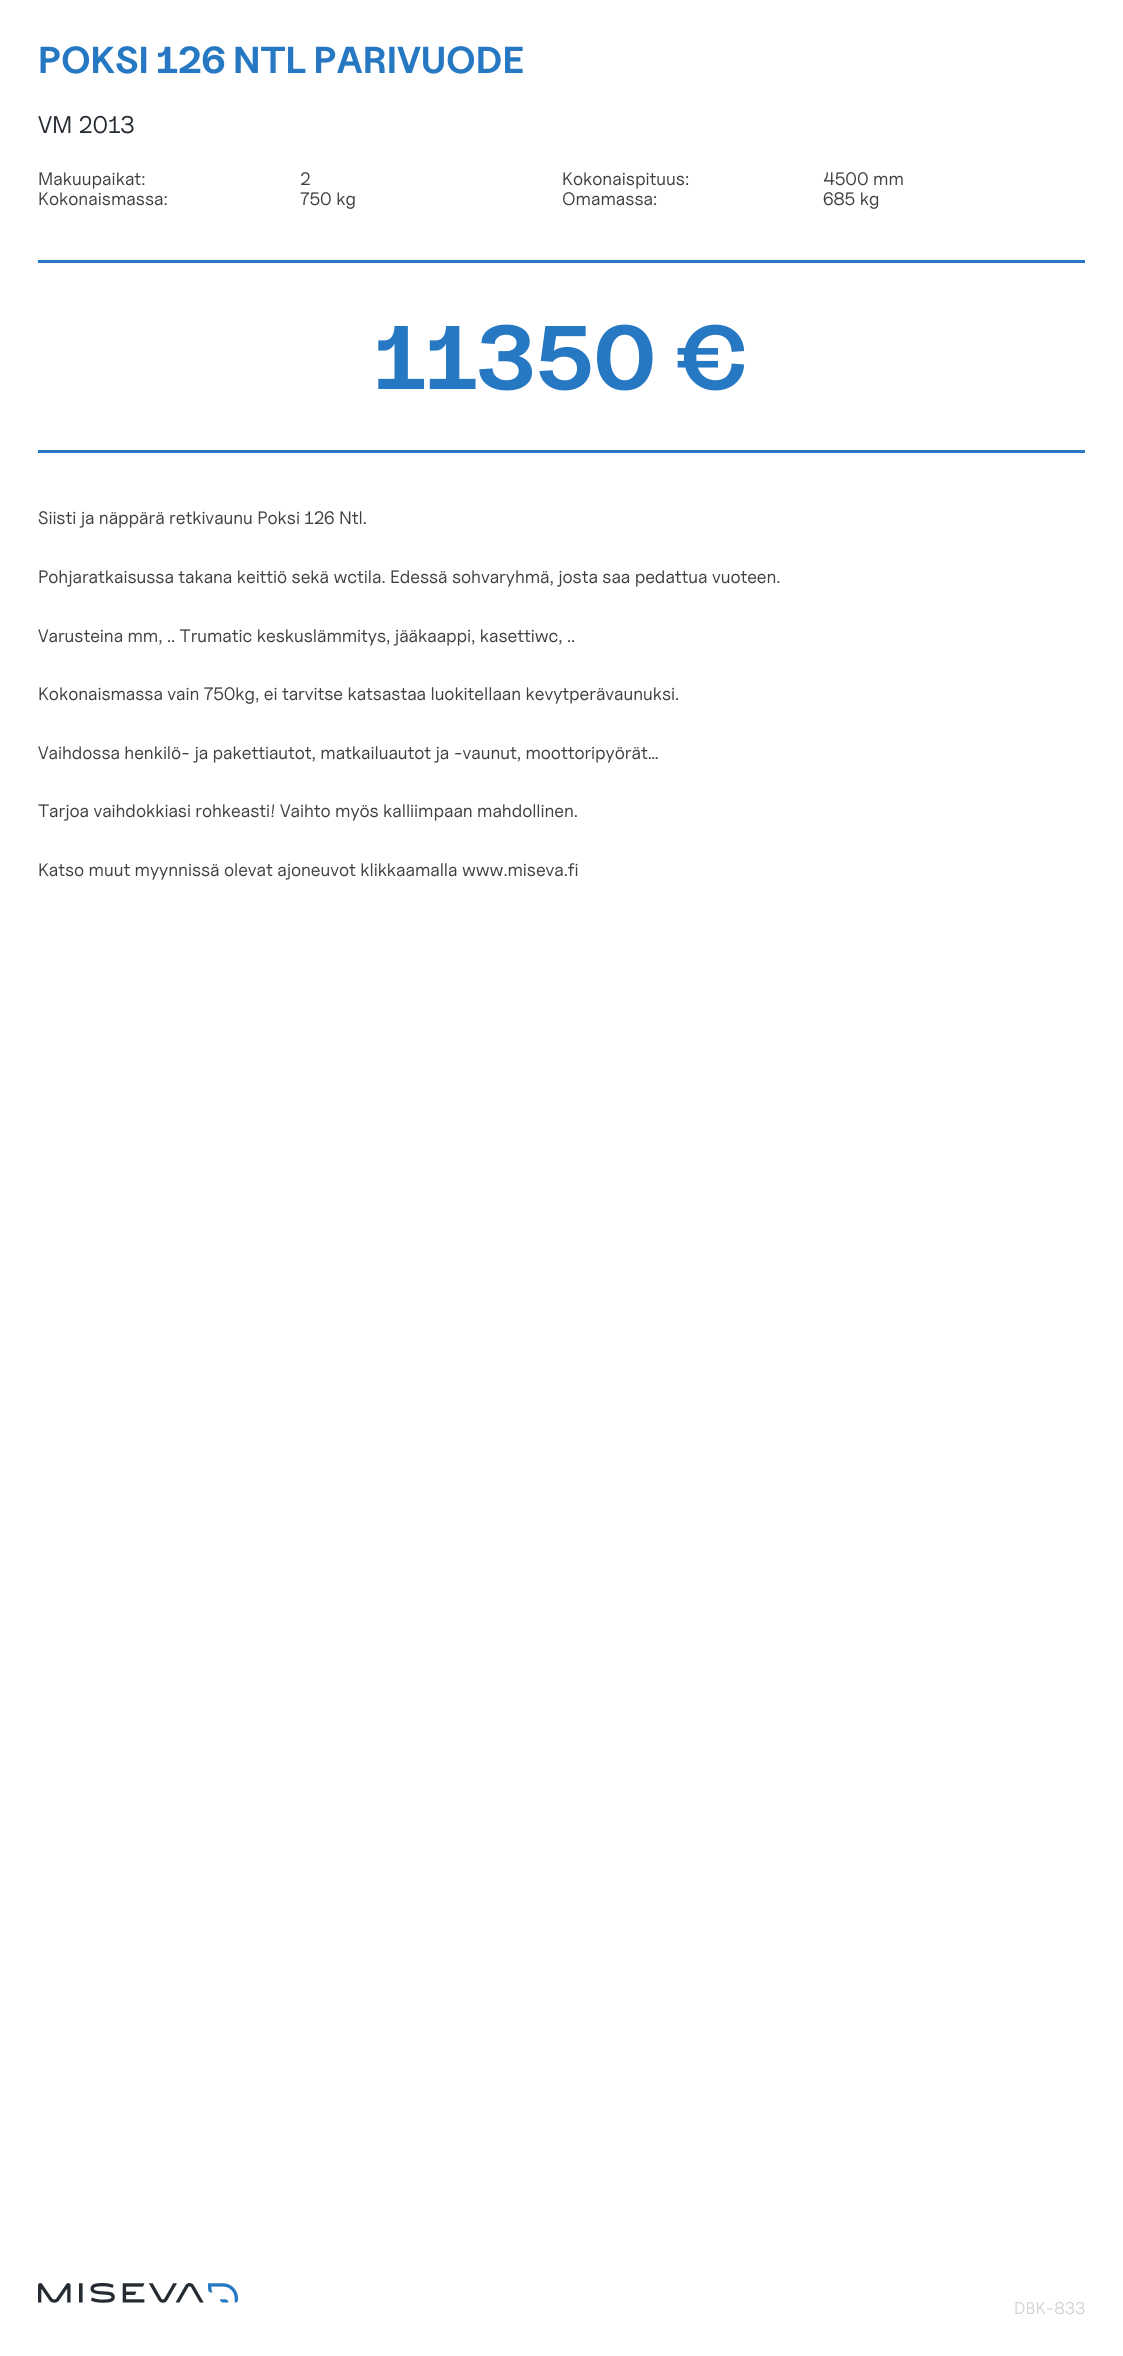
import math
import cairo


def write_spaced(ctx, x, y, s, letter, word):
	ctx.move_to(x, y)
	for ch in s:
		ctx.show_text(ch)
		ctx.rel_move_to(letter + word * (ch == ' '), 0)

def paste(ctx, path, x, y, w, h):
	ctx.save()
	ctx.set_source_surface(cairo.ImageSurface.create_from_png(path), x, y)
	ctx.rectangle(x, y, w, h)
	ctx.fill()
	ctx.restore()

def draw(ctx):
	ctx.set_source_rgb(1, 1, 1)
	ctx.paint()
	ctx.select_font_face('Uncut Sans', cairo.FONT_SLANT_NORMAL, cairo.FONT_WEIGHT_BOLD)
	ctx.set_font_size(37.5)
	ctx.set_source_rgb(0.149, 0.471, 0.761)
	ctx.move_to(38, 73)
	ctx.show_text('POKSI 126 NTL PARIVUODE')
	ctx.select_font_face('Uncut Sans')
	ctx.set_font_size(24)
	ctx.set_source_rgb(0.145, 0.169, 0.196)
	ctx.move_to(38, 133)
	ctx.show_text('VM 2013')
	ctx.set_font_size(18)
	ctx.set_source_rgb(0.251, 0.251, 0.251)
	for x, y, s in [
		(38, 185, 'Makuupaikat:'),
		(300, 185, '2'),
		(562, 185, 'Kokonaispituus:'),
		(823, 185, '4500 mm'),
		(38, 205, 'Kokonaismassa:'),
		(300, 205, '750 kg'),
		(562, 205, 'Omamassa:'),
		(823, 205, '685 kg'),
	]:
		ctx.move_to(x, y)
		ctx.show_text(s)
	ctx.set_source_rgb(0.149, 0.471, 0.761)
	ctx.rectangle(38, 260, 1047, 3)
	ctx.fill()
	ctx.rectangle(38, 450, 1047, 3)
	ctx.fill()
	ctx.select_font_face('Uncut Sans', cairo.FONT_SLANT_NORMAL, cairo.FONT_WEIGHT_BOLD)
	ctx.set_font_size(90)
	write_spaced(ctx, 374, 389, '11350 €', -0.05, 0)
	ctx.select_font_face('Uncut Sans')
	ctx.set_font_size(18)
	ctx.set_source_rgb(0.251, 0.251, 0.251)
	for x, y, s in [
		(38, 524, 'Siisti ja näppärä retkivaunu Poksi 126 Ntl.'),
		(38, 583, 'Pohjaratkaisussa takana keittiö sekä wctila. Edessä sohvaryhmä, josta saa pedattua vuoteen.'),
		(38, 642, 'Varusteina mm, .. Trumatic keskuslämmitys, jääkaappi, kasettiwc, ..'),
		(38, 700, 'Kokonaismassa vain 750kg, ei tarvitse katsastaa luokitellaan kevytperävaunuksi.'),
		(38, 759, 'Vaihdossa henkilö- ja pakettiautot, matkailuautot ja -vaunut, moottoripyörät…'),
		(38, 817, 'Tarjoa vaihdokkiasi rohkeasti! Vaihto myös kalliimpaan mahdollinen.'),
		(38, 876, 'Katso muut myynnissä olevat ajoneuvot klikkaamalla www.miseva.fi'),
	]:
		write_spaced(ctx, x, y, s, -0.05, 0)
	paste(ctx, 'media/1.png', 38, 2283, 200, 20)
	ctx.set_font_size(17)
	ctx.set_source_rgb(0.827, 0.827, 0.827)
	ctx.move_to(1014, 2314)
	ctx.show_text('DBK-833')


surface = cairo.ImageSurface(cairo.FORMAT_RGB24, 1123, 2356)
ctx = cairo.Context(surface)
options = cairo.FontOptions()
options.set_hint_metrics(cairo.HINT_METRICS_OFF)
options.set_hint_style(cairo.HINT_STYLE_NONE)
ctx.set_font_options(options)
ctx.set_miter_limit(4)
draw(ctx)
surface.write_to_png('image.png')
